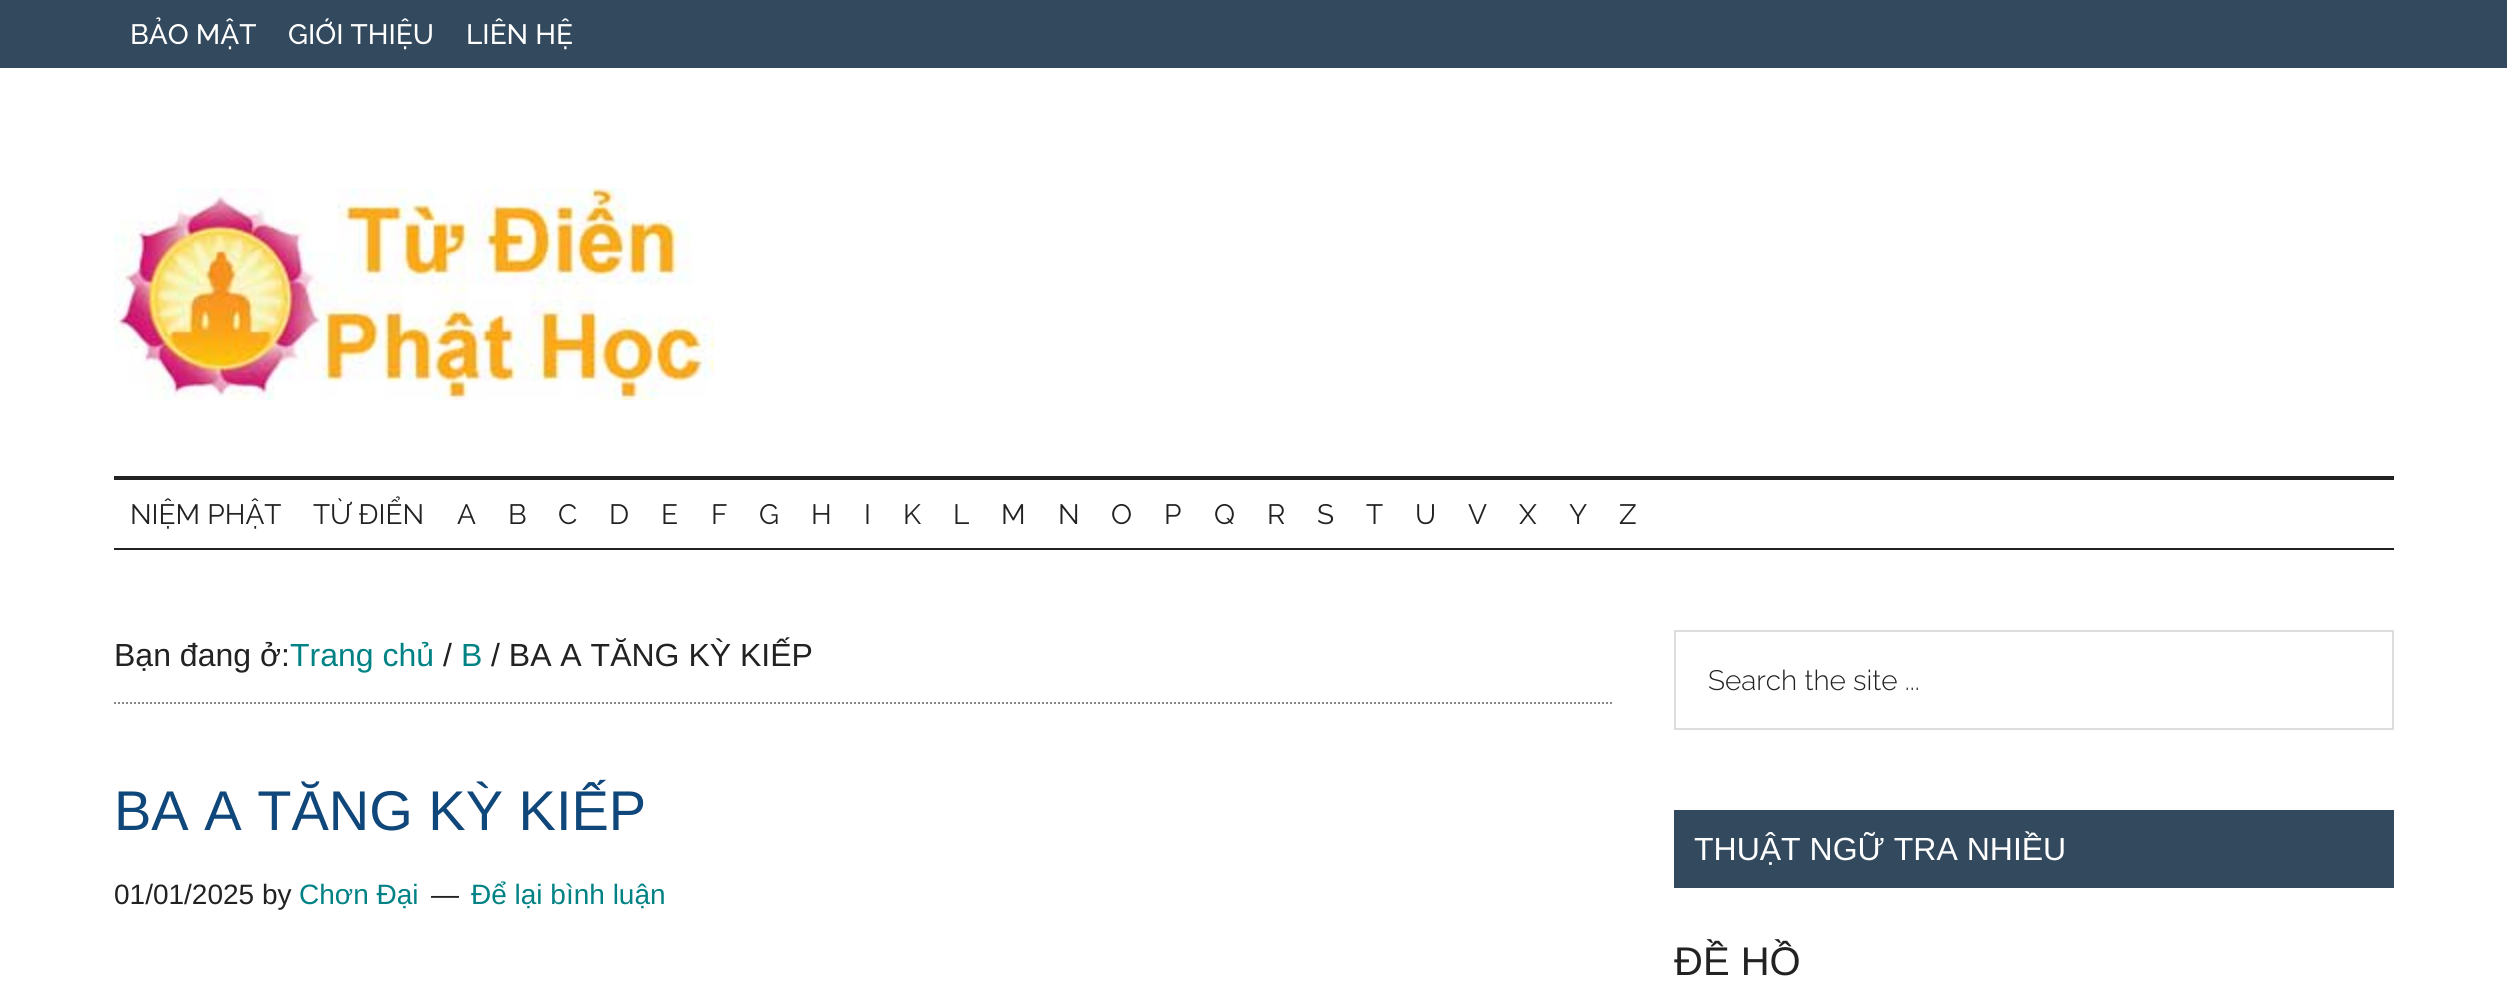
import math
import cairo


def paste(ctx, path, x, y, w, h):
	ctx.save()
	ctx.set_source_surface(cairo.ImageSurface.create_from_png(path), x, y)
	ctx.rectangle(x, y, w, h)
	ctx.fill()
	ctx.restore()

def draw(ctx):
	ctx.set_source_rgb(1, 1, 1)
	ctx.paint()
	ctx.set_source_rgb(0.2, 0.286, 0.365)
	ctx.rectangle(0, 0, 2507, 68)
	ctx.fill()
	ctx.select_font_face('Raleway Medium')
	ctx.set_font_size(28)
	ctx.set_source_rgb(1, 1, 1)
	for x, y, s in [
		(130, 44, 'BẢO MẬT'),
		(288, 44, 'GIỚI THIỆU'),
		(466, 44, 'LIÊN HỆ'),
	]:
		ctx.move_to(x, y)
		ctx.show_text(s)
	ctx.set_source_rgb(0.133, 0.133, 0.133)
	ctx.rectangle(114, 476, 2280, 4)
	ctx.fill()
	paste(ctx, 'media/1.png', 114, 188, 600, 212)
	ctx.rectangle(114, 548, 2280, 2)
	ctx.fill()
	ctx.select_font_face('Raleway')
	for x, y, s in [
		(130, 524, 'NIỆM PHẬT'),
		(313, 524, 'TỪ ĐIỂN'),
		(457, 524, 'A'),
		(508, 524, 'B'),
		(558, 524, 'C'),
		(609, 524, 'D'),
		(661, 524, 'E'),
		(711, 524, 'F'),
		(759, 524, 'G'),
		(811, 524, 'H'),
		(864, 524, 'I'),
		(903, 524, 'K'),
		(953, 524, 'L'),
		(1001, 524, 'M'),
		(1058, 524, 'N'),
		(1111, 524, 'O'),
		(1164, 524, 'P'),
		(1214, 524, 'Q'),
		(1267, 524, 'R'),
		(1317, 524, 'S'),
		(1366, 524, 'T'),
		(1415, 524, 'U'),
		(1468, 524, 'V'),
		(1519, 524, 'X'),
		(1569, 524, 'Y'),
		(1619, 524, 'Z'),
	]:
		ctx.move_to(x, y)
		ctx.show_text(s)
	ctx.new_path()
	ctx.move_to(114, 703)
	ctx.line_to(1614, 703)
	ctx.set_source_rgb(0.533, 0.533, 0.533)
	ctx.set_dash([2, 2])
	ctx.stroke()
	ctx.select_font_face('Liberation Sans')
	ctx.set_font_size(32)
	ctx.set_source_rgb(0.133, 0.133, 0.133)
	ctx.move_to(114, 666)
	ctx.show_text('Bạn đang ở:')
	ctx.set_source_rgb(0, 0.51, 0.522)
	ctx.move_to(290, 666)
	ctx.show_text('Trang chủ')
	ctx.set_source_rgb(0.133, 0.133, 0.133)
	ctx.move_to(443, 666)
	ctx.show_text('/')
	ctx.set_source_rgb(0, 0.51, 0.522)
	ctx.move_to(461, 666)
	ctx.show_text('B')
	ctx.set_source_rgb(0.133, 0.133, 0.133)
	ctx.move_to(491, 666)
	ctx.show_text('/ BA A TĂNG KỲ KIẾP')
	ctx.set_font_size(56)
	ctx.set_source_rgb(0.063, 0.278, 0.478)
	ctx.move_to(114, 830)
	ctx.show_text('BA A TĂNG KỲ KIẾP')
	ctx.set_font_size(28)
	ctx.set_source_rgb(0.133, 0.133, 0.133)
	ctx.move_to(114, 904)
	ctx.show_text('01/01/2025 by')
	ctx.set_source_rgb(0, 0.51, 0.522)
	ctx.move_to(299, 904)
	ctx.show_text('Chơn Đại')
	ctx.set_source_rgb(0.133, 0.133, 0.133)
	ctx.move_to(431, 904)
	ctx.show_text('—')
	ctx.set_source_rgb(0, 0.51, 0.522)
	ctx.move_to(471, 904)
	ctx.show_text('Để lại bình luận')
	ctx.rectangle(1675, 631, 718, 98)
	ctx.set_source_rgb(0.867, 0.867, 0.867)
	ctx.set_dash([])
	ctx.stroke()
	ctx.select_font_face('Raleway Light')
	ctx.set_source_rgb(0.133, 0.133, 0.133)
	ctx.move_to(1708, 690)
	ctx.show_text('Search the site ...')
	ctx.set_source_rgb(0.2, 0.286, 0.365)
	ctx.rectangle(1674, 810, 720, 78)
	ctx.fill()
	ctx.select_font_face('Liberation Sans')
	ctx.set_font_size(32)
	ctx.set_source_rgb(1, 1, 1)
	ctx.move_to(1694, 860)
	ctx.show_text('THUẬT NGỮ TRA NHIỀU')
	ctx.set_font_size(40)
	ctx.set_source_rgb(0.133, 0.133, 0.133)
	ctx.move_to(1674, 975)
	ctx.show_text('ĐỀ HỒ')


surface = cairo.ImageSurface(cairo.FORMAT_RGB24, 2507, 997)
ctx = cairo.Context(surface)
options = cairo.FontOptions()
options.set_hint_metrics(cairo.HINT_METRICS_OFF)
options.set_hint_style(cairo.HINT_STYLE_NONE)
ctx.set_font_options(options)
ctx.set_miter_limit(4)
draw(ctx)
surface.write_to_png('image.png')
